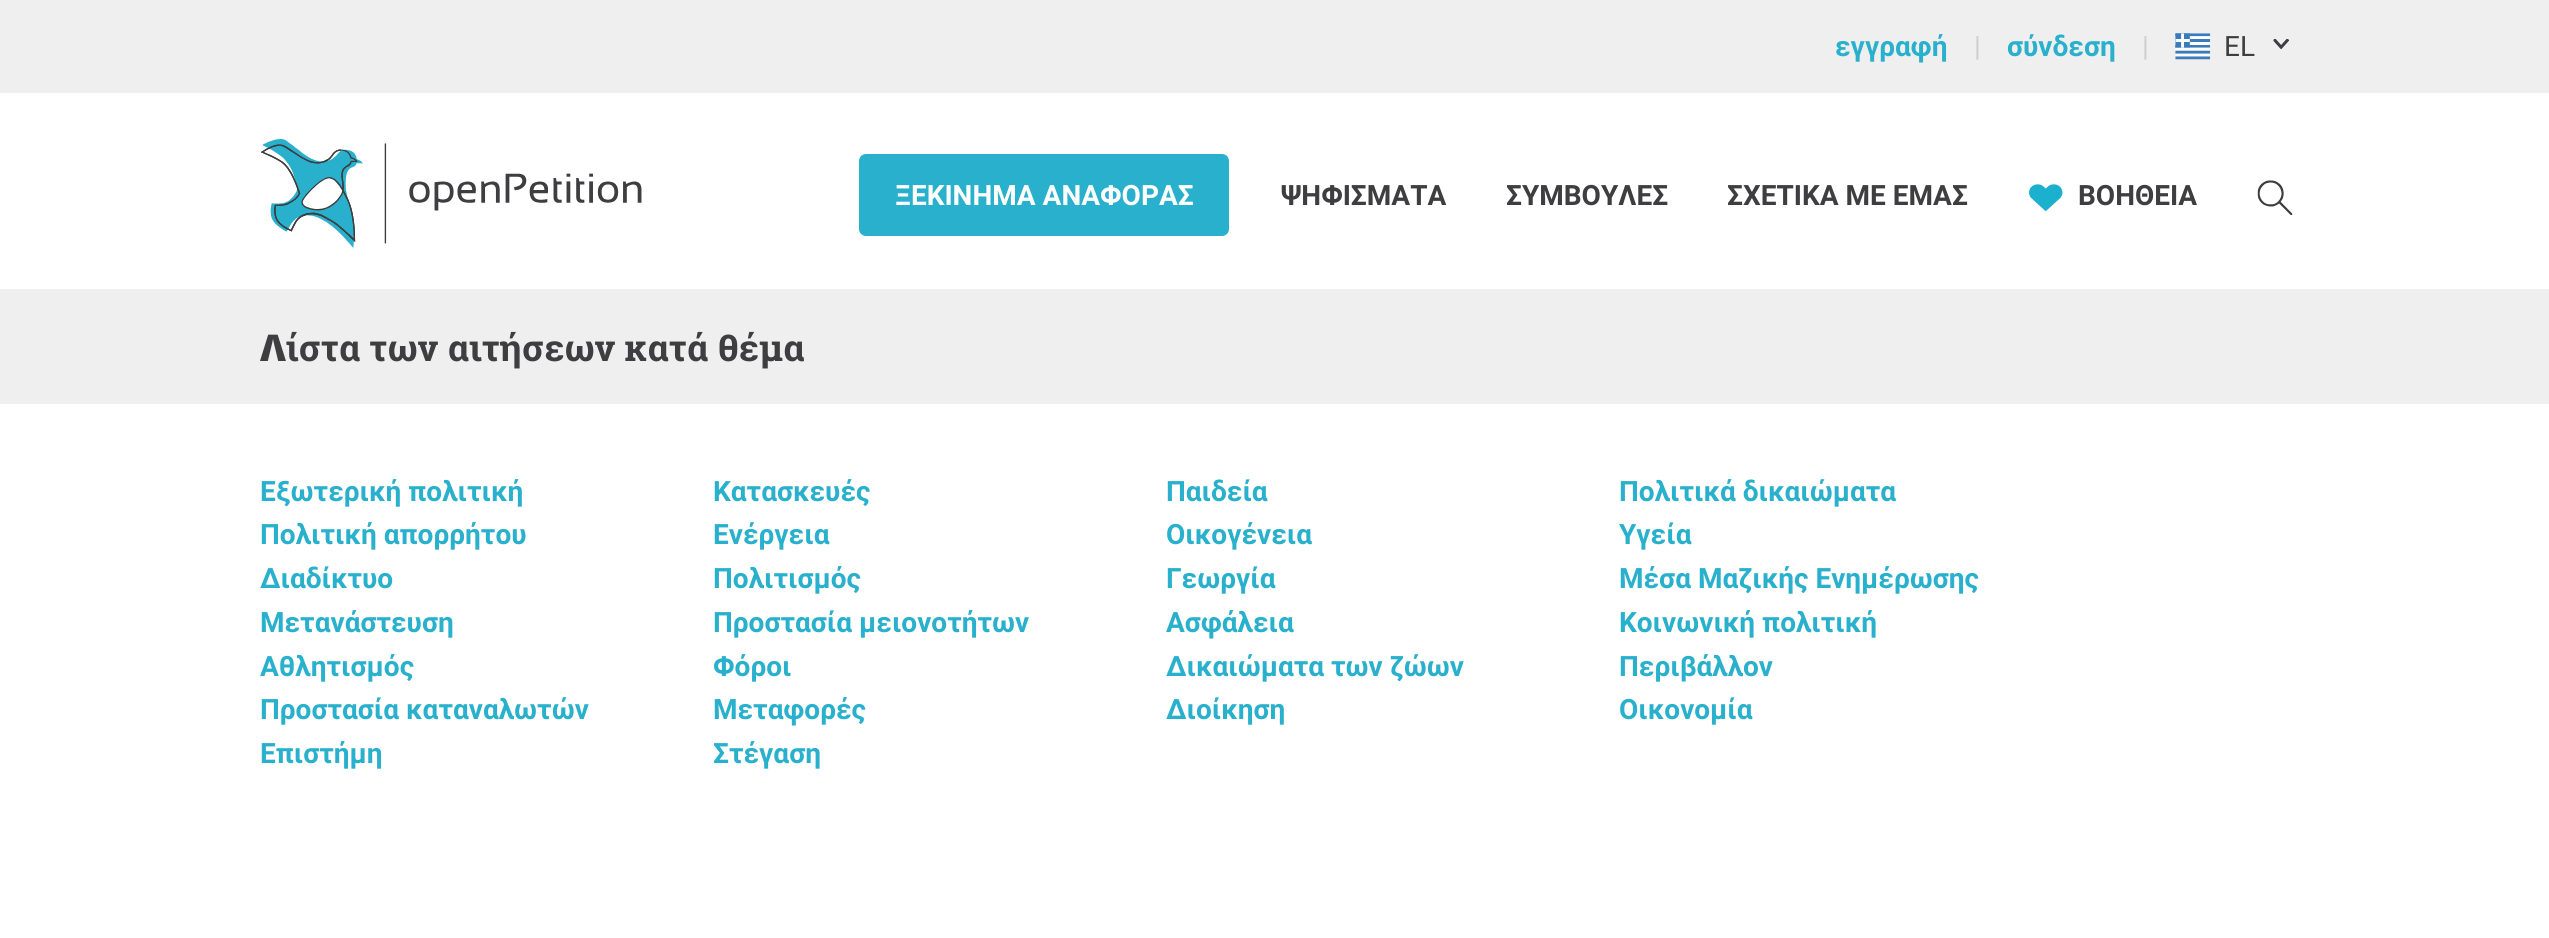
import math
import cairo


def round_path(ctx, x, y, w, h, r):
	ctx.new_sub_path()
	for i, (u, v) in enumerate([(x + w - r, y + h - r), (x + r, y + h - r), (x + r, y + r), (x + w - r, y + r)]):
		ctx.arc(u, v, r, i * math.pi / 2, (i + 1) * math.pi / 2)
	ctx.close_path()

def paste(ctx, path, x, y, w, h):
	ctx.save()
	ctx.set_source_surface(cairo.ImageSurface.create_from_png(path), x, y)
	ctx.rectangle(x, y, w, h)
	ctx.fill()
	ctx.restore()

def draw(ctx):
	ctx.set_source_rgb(1, 1, 1)
	ctx.paint()
	ctx.set_source_rgb(0.937, 0.937, 0.937)
	ctx.rectangle(0, 0, 2549, 93)
	ctx.fill()
	ctx.select_font_face('Roboto', cairo.FONT_SLANT_NORMAL, cairo.FONT_WEIGHT_BOLD)
	ctx.set_font_size(28)
	ctx.set_source_rgb(0.161, 0.69, 0.8)
	ctx.move_to(1835, 56)
	ctx.show_text('εγγραφή')
	ctx.select_font_face('Roboto')
	ctx.set_source_rgb(0.812, 0.812, 0.812)
	ctx.move_to(1974, 56)
	ctx.show_text('|')
	ctx.select_font_face('Roboto', cairo.FONT_SLANT_NORMAL, cairo.FONT_WEIGHT_BOLD)
	ctx.set_source_rgb(0.161, 0.69, 0.8)
	ctx.move_to(2007, 56)
	ctx.show_text('σύνδεση')
	ctx.select_font_face('Roboto')
	ctx.set_source_rgb(0.812, 0.812, 0.812)
	ctx.move_to(2142, 56)
	ctx.show_text('|')
	paste(ctx, 'media/1.png', 2175, 33, 36, 27)
	ctx.set_source_rgb(0.243, 0.239, 0.251)
	ctx.move_to(2224, 56)
	ctx.show_text('EL')
	paste(ctx, 'media/2.png', 2273, 39, 16, 10)
	paste(ctx, 'media/3.png', 261, 139, 381, 109)
	ctx.set_source_rgb(0.161, 0.69, 0.8)
	round_path(ctx, 859, 154, 370, 82, 7)
	ctx.fill()
	ctx.select_font_face('Roboto', cairo.FONT_SLANT_NORMAL, cairo.FONT_WEIGHT_BOLD)
	ctx.set_source_rgb(1, 1, 1)
	ctx.move_to(895, 205)
	ctx.show_text('ΞΕΚΙΝΗΜΑ ΑΝΑΦΟΡΑΣ')
	ctx.set_source_rgb(0.243, 0.239, 0.251)
	for x, y, s in [
		(1281, 205, 'ΨΗΦΙΣΜΑΤΑ'),
		(1506, 205, 'ΣΥΜΒΟΥΛΕΣ'),
		(1727, 205, 'ΣΧΕΤΙΚΑ ΜΕ ΕΜΑΣ'),
	]:
		ctx.move_to(x, y)
		ctx.show_text(s)
	paste(ctx, 'media/4.png', 2029, 184, 34, 28)
	ctx.move_to(2078, 205)
	ctx.show_text('ΒΟΗΘΕΙΑ')
	paste(ctx, 'media/5.png', 2257, 180, 36, 36)
	ctx.set_source_rgb(0.937, 0.937, 0.937)
	ctx.rectangle(0, 289, 2549, 115)
	ctx.fill()
	ctx.select_font_face('Noto Sans Black')
	ctx.set_font_size(36.75)
	ctx.set_source_rgb(0.243, 0.239, 0.251)
	ctx.move_to(260, 361)
	ctx.show_text('Λ')
	ctx.select_font_face('Roboto Slab', cairo.FONT_SLANT_NORMAL, cairo.FONT_WEIGHT_BOLD)
	ctx.move_to(286, 361)
	ctx.show_text('ίστα των αιτήσεων κατά θέμα')
	ctx.select_font_face('Roboto', cairo.FONT_SLANT_NORMAL, cairo.FONT_WEIGHT_BOLD)
	ctx.set_font_size(28)
	ctx.set_source_rgb(0.161, 0.69, 0.8)
	for x, y, s in [
		(260, 501, 'Εξωτερική πολιτική'),
		(713, 501, 'Κατασκευές'),
		(1166, 501, 'Παιδεία'),
		(1619, 501, 'Πολιτικά δικαιώματα'),
		(260, 544, 'Πολιτική απορρήτου'),
		(713, 544, 'Ενέργεια'),
		(1166, 544, 'Οικογένεια'),
		(1619, 544, 'Υγεία'),
		(260, 588, 'Διαδίκτυο'),
		(713, 588, 'Πολιτισμός'),
		(1166, 588, 'Γεωργία'),
		(1619, 588, 'Μέσα Μαζικής Ενημέρωσης'),
		(260, 632, 'Μετανάστευση'),
		(713, 632, 'Προστασία μειονοτήτων'),
		(1166, 632, 'Ασφάλεια'),
		(1619, 632, 'Κοινωνική πολιτική'),
		(260, 676, 'Αθλητισμός'),
		(713, 676, 'Φόροι'),
		(1166, 676, 'Δικαιώματα των ζώων'),
		(1619, 676, 'Περιβάλλον'),
		(260, 719, 'Προστασία καταναλωτών'),
		(713, 719, 'Μεταφορές'),
		(1166, 719, 'Διοίκηση'),
		(1619, 719, 'Οικονομία'),
		(260, 763, 'Επιστήμη'),
		(713, 763, 'Στέγαση'),
	]:
		ctx.move_to(x, y)
		ctx.show_text(s)


surface = cairo.ImageSurface(cairo.FORMAT_RGB24, 2549, 938)
ctx = cairo.Context(surface)
options = cairo.FontOptions()
options.set_hint_metrics(cairo.HINT_METRICS_OFF)
options.set_hint_style(cairo.HINT_STYLE_NONE)
ctx.set_font_options(options)
ctx.set_miter_limit(4)
draw(ctx)
surface.write_to_png('image.png')
